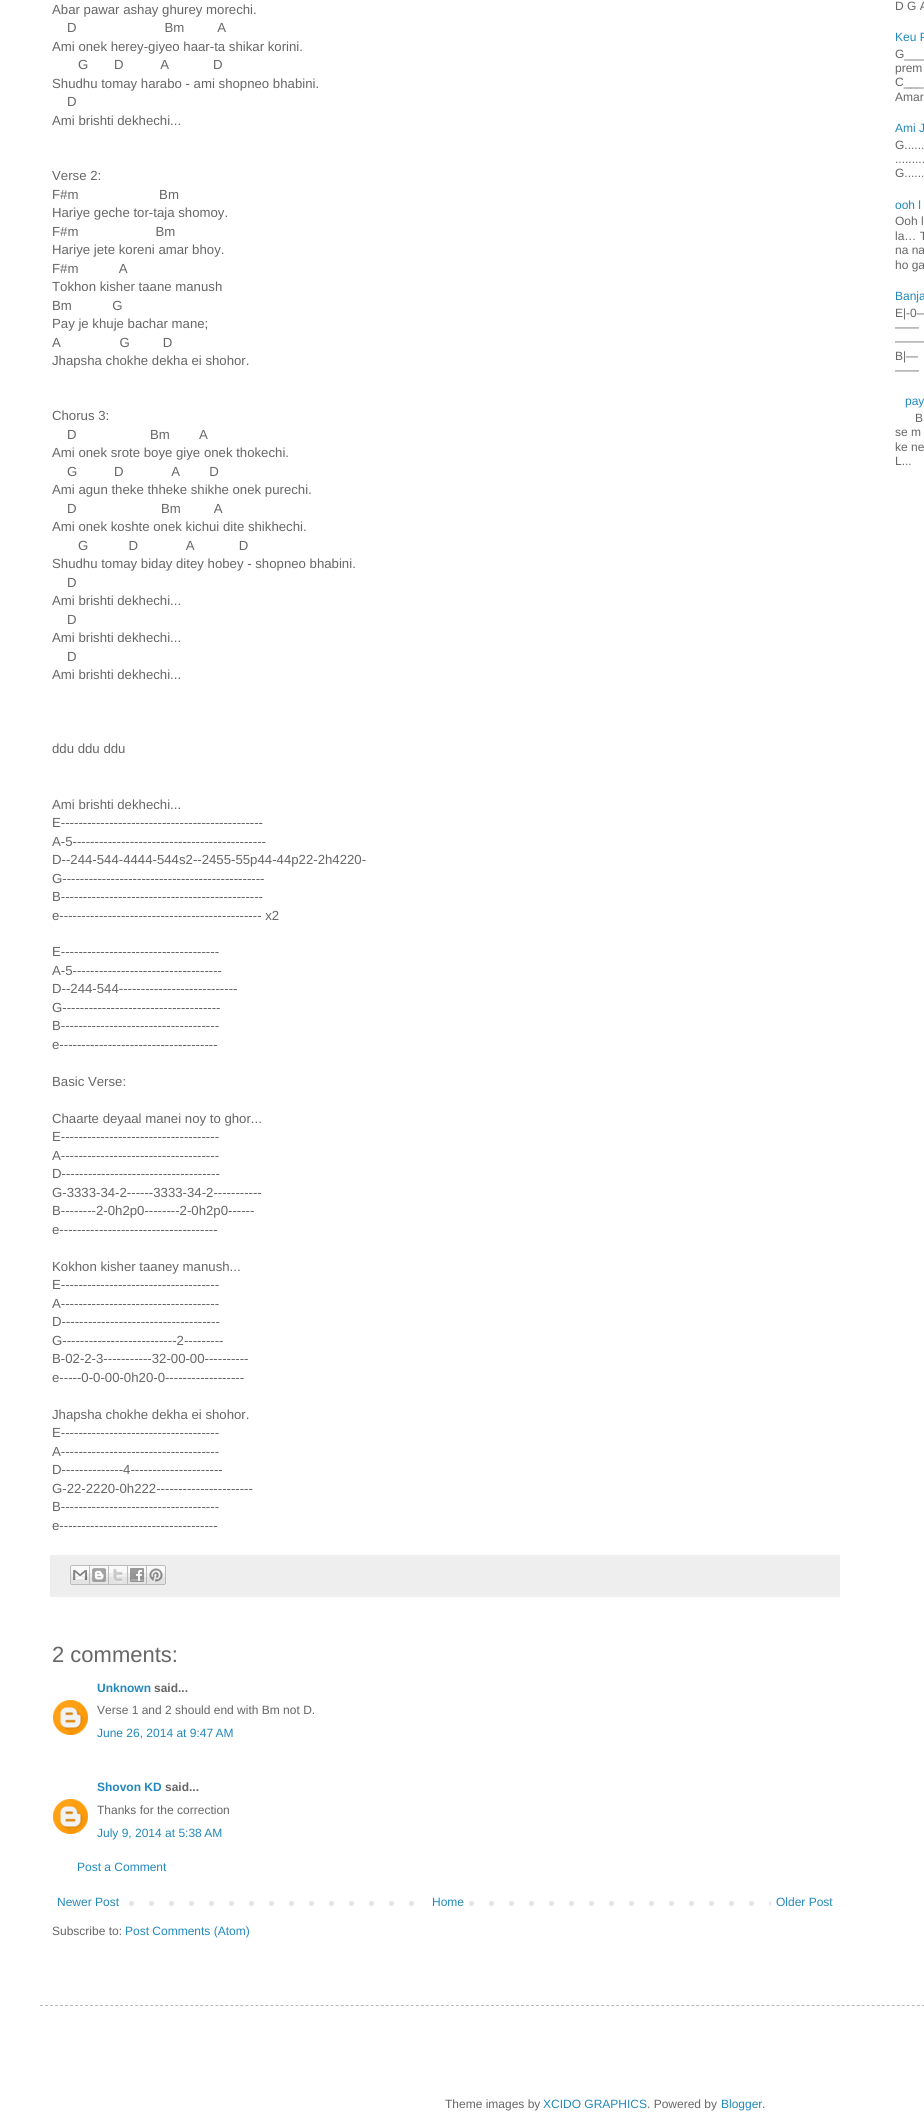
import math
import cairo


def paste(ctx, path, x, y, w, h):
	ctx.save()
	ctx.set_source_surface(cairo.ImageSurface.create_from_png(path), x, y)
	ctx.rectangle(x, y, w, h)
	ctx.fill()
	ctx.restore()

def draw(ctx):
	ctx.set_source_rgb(1, 1, 1)
	ctx.paint()
	ctx.select_font_face('Liberation Sans')
	ctx.set_font_size(13.2)
	ctx.set_source_rgb(0.4, 0.4, 0.4)
	for x, y, s in [
		(52, 14, 'Abar pawar ashay ghurey morechi.'),
		(67, 32, 'D                        Bm         A'),
		(52, 51, 'Ami onek herey-giyeo haar-ta shikar korini.'),
		(78, 69, 'G       D          A            D'),
		(52, 88, 'Shudhu tomay harabo - ami shopneo bhabini.'),
		(67, 106, 'D'),
		(52, 125, 'Ami brishti dekhechi...'),
		(52, 180, 'Verse 2:'),
		(52, 199, 'F#m                      Bm'),
		(52, 217, 'Hariye geche tor-taja shomoy.'),
		(52, 236, 'F#m                     Bm'),
		(52, 254, 'Hariye jete koreni amar bhoy.'),
		(52, 273, 'F#m           A'),
		(52, 291, 'Tokhon kisher taane manush'),
		(52, 310, 'Bm           G'),
		(52, 328, 'Pay je khuje bachar mane;'),
		(52, 347, 'A                G         D'),
		(52, 365, 'Jhapsha chokhe dekha ei shohor.'),
		(52, 420, 'Chorus 3:'),
		(67, 439, 'D                    Bm        A'),
		(52, 457, 'Ami onek srote boye giye onek thokechi.'),
		(67, 476, 'G          D             A        D'),
		(52, 494, 'Ami agun theke thheke shikhe onek purechi.'),
		(67, 513, 'D                       Bm         A'),
		(52, 531, 'Ami onek koshte onek kichui dite shikhechi.'),
		(78, 550, 'G           D             A            D'),
		(52, 568, 'Shudhu tomay biday ditey hobey - shopneo bhabini.'),
		(67, 587, 'D'),
		(52, 605, 'Ami brishti dekhechi...'),
		(67, 624, 'D'),
		(52, 642, 'Ami brishti dekhechi...'),
		(67, 661, 'D'),
		(52, 679, 'Ami brishti dekhechi...'),
		(52, 753, 'ddu ddu ddu'),
		(52, 809, 'Ami brishti dekhechi...'),
		(52, 827, 'E----------------------------------------------'),
		(52, 846, 'A-5--------------------------------------------'),
		(52, 864, 'D--244-544-4444-544s2--2455-55p44-44p22-2h4220-'),
		(52, 883, 'G----------------------------------------------'),
		(52, 901, 'B----------------------------------------------'),
		(52, 920, 'e---------------------------------------------- x2'),
		(52, 956, 'E------------------------------------'),
		(52, 975, 'A-5----------------------------------'),
		(52, 993, 'D--244-544---------------------------'),
		(52, 1012, 'G------------------------------------'),
		(52, 1030, 'B------------------------------------'),
		(52, 1049, 'e------------------------------------'),
		(52, 1086, 'Basic Verse:'),
		(52, 1123, 'Chaarte deyaal manei noy to ghor...'),
		(52, 1141, 'E------------------------------------'),
		(52, 1160, 'A------------------------------------'),
		(52, 1178, 'D------------------------------------'),
		(52, 1197, 'G-3333-34-2------3333-34-2-----------'),
		(52, 1215, 'B--------2-0h2p0--------2-0h2p0------'),
		(52, 1234, 'e------------------------------------'),
		(52, 1271, 'Kokhon kisher taaney manush...'),
		(52, 1289, 'E------------------------------------'),
		(52, 1308, 'A------------------------------------'),
		(52, 1326, 'D------------------------------------'),
		(52, 1345, 'G--------------------------2---------'),
		(52, 1363, 'B-02-2-3-----------32-00-00----------'),
		(52, 1382, 'e-----0-0-00-0h20-0------------------'),
		(52, 1419, 'Jhapsha chokhe dekha ei shohor.'),
		(52, 1437, 'E------------------------------------'),
		(52, 1456, 'A------------------------------------'),
		(52, 1474, 'D--------------4---------------------'),
		(52, 1493, 'G-22-2220-0h222----------------------'),
		(52, 1511, 'B------------------------------------'),
		(52, 1530, 'e------------------------------------'),
	]:
		ctx.move_to(x, y)
		ctx.show_text(s)
	ctx.set_source_rgb(0.933, 0.933, 0.933)
	ctx.rectangle(50, 1555, 790, 42)
	ctx.fill()
	paste(ctx, 'media/1.png', 70, 1565, 20, 20)
	paste(ctx, 'media/2.png', 90, 1565, 19, 20)
	paste(ctx, 'media/3.png', 109, 1565, 19, 20)
	paste(ctx, 'media/4.png', 128, 1565, 19, 20)
	paste(ctx, 'media/5.png', 147, 1565, 19, 20)
	ctx.set_font_size(22)
	ctx.set_source_rgb(0.4, 0.4, 0.4)
	ctx.move_to(52, 1662)
	ctx.show_text('2 comments:')
	ctx.select_font_face('Liberation Sans', cairo.FONT_SLANT_NORMAL, cairo.FONT_WEIGHT_BOLD)
	ctx.set_font_size(12)
	ctx.set_source_rgb(0.133, 0.533, 0.733)
	ctx.move_to(97, 1692)
	ctx.show_text('Unknown')
	ctx.set_source_rgb(0.4, 0.4, 0.4)
	ctx.move_to(154, 1692)
	ctx.show_text('said...')
	paste(ctx, 'media/6.png', 53, 1700, 35, 35)
	ctx.select_font_face('Liberation Sans')
	ctx.move_to(97, 1714)
	ctx.show_text('Verse 1 and 2 should end with Bm not D.')
	ctx.set_source_rgb(0.133, 0.533, 0.733)
	ctx.move_to(97, 1737)
	ctx.show_text('June 26, 2014 at 9:47 AM')
	ctx.select_font_face('Liberation Sans', cairo.FONT_SLANT_NORMAL, cairo.FONT_WEIGHT_BOLD)
	ctx.move_to(97, 1791)
	ctx.show_text('Shovon KD')
	ctx.set_source_rgb(0.4, 0.4, 0.4)
	ctx.move_to(165, 1791)
	ctx.show_text('said...')
	paste(ctx, 'media/6.png', 53, 1799, 35, 35)
	ctx.select_font_face('Liberation Sans')
	ctx.move_to(97, 1814)
	ctx.show_text('Thanks for the correction')
	ctx.set_source_rgb(0.133, 0.533, 0.733)
	ctx.move_to(97, 1837)
	ctx.show_text('July 9, 2014 at 5:38 AM')
	ctx.move_to(77, 1871)
	ctx.show_text('Post a Comment')
	paste(ctx, 'media/7.png', 129, 1901, 642, 5)
	ctx.move_to(57, 1906)
	ctx.show_text('Newer Post')
	ctx.set_source_rgb(1, 1, 1)
	ctx.rectangle(429, 1901, 26, 5)
	ctx.fill()
	ctx.set_source_rgb(0.133, 0.533, 0.733)
	ctx.move_to(432, 1906)
	ctx.show_text('Home')
	ctx.move_to(776, 1906)
	ctx.show_text('Older Post')
	ctx.set_source_rgb(0.4, 0.4, 0.4)
	ctx.move_to(52, 1935)
	ctx.show_text('Subscribe to:')
	ctx.set_source_rgb(0.133, 0.533, 0.733)
	ctx.move_to(125, 1935)
	ctx.show_text('Post Comments (Atom)')
	ctx.set_source_rgb(0.4, 0.4, 0.4)
	ctx.move_to(895, 10)
	ctx.show_text('D G A')
	ctx.set_source_rgb(0.133, 0.533, 0.733)
	ctx.move_to(895, 41)
	ctx.show_text('Keu P')
	ctx.set_source_rgb(0.4, 0.4, 0.4)
	for x, y, s in [
		(895, 58, 'G___'),
		(895, 72, 'prem'),
		(895, 86, 'C___'),
		(895, 101, 'Amar'),
	]:
		ctx.move_to(x, y)
		ctx.show_text(s)
	ctx.set_source_rgb(0.133, 0.533, 0.733)
	ctx.move_to(895, 132)
	ctx.show_text('Ami J')
	ctx.set_source_rgb(0.4, 0.4, 0.4)
	for x, y, s in [
		(895, 149, 'G......'),
		(895, 163, '.........'),
		(895, 177, 'G......'),
	]:
		ctx.move_to(x, y)
		ctx.show_text(s)
	ctx.set_source_rgb(0.133, 0.533, 0.733)
	ctx.move_to(895, 209)
	ctx.show_text('ooh l')
	ctx.set_source_rgb(0.4, 0.4, 0.4)
	for x, y, s in [
		(895, 225, 'Ooh l'),
		(895, 240, 'la… T'),
		(895, 254, 'na na'),
		(895, 269, 'ho ga'),
	]:
		ctx.move_to(x, y)
		ctx.show_text(s)
	ctx.set_source_rgb(0.133, 0.533, 0.733)
	ctx.move_to(895, 300)
	ctx.show_text('Banja')
	ctx.set_source_rgb(0.4, 0.4, 0.4)
	for x, y, s in [
		(895, 317, 'E|-0—'),
		(895, 331, '——'),
		(895, 345, '——–'),
		(895, 360, 'B|—'),
		(895, 374, '——'),
	]:
		ctx.move_to(x, y)
		ctx.show_text(s)
	ctx.set_source_rgb(0.133, 0.533, 0.733)
	ctx.move_to(905, 405)
	ctx.show_text('pay')
	ctx.set_source_rgb(0.4, 0.4, 0.4)
	for x, y, s in [
		(915, 422, 'B'),
		(895, 436, 'se m'),
		(895, 451, 'ke ne'),
		(895, 465, 'L...'),
	]:
		ctx.move_to(x, y)
		ctx.show_text(s)
	ctx.new_path()
	ctx.move_to(40, 2005.5)
	ctx.line_to(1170, 2005.5)
	ctx.set_source_rgb(0.733, 0.733, 0.733)
	ctx.set_line_width(1)
	ctx.set_dash([3, 2.01])
	ctx.stroke()
	ctx.set_source_rgb(0.4, 0.4, 0.4)
	ctx.move_to(445, 2108)
	ctx.show_text('Theme images by')
	ctx.set_source_rgb(0.133, 0.533, 0.733)
	ctx.move_to(543, 2108)
	ctx.show_text('XCIDO GRAPHICS')
	ctx.set_source_rgb(0.4, 0.4, 0.4)
	ctx.move_to(647, 2108)
	ctx.show_text('. Powered by')
	ctx.set_source_rgb(0.133, 0.533, 0.733)
	ctx.move_to(721, 2108)
	ctx.show_text('Blogger')
	ctx.set_source_rgb(0.4, 0.4, 0.4)
	ctx.move_to(762, 2108)
	ctx.show_text('.')


surface = cairo.ImageSurface(cairo.FORMAT_RGB24, 924, 2116)
ctx = cairo.Context(surface)
options = cairo.FontOptions()
options.set_hint_metrics(cairo.HINT_METRICS_OFF)
options.set_hint_style(cairo.HINT_STYLE_NONE)
ctx.set_font_options(options)
ctx.set_miter_limit(4)
draw(ctx)
surface.write_to_png('image.png')
